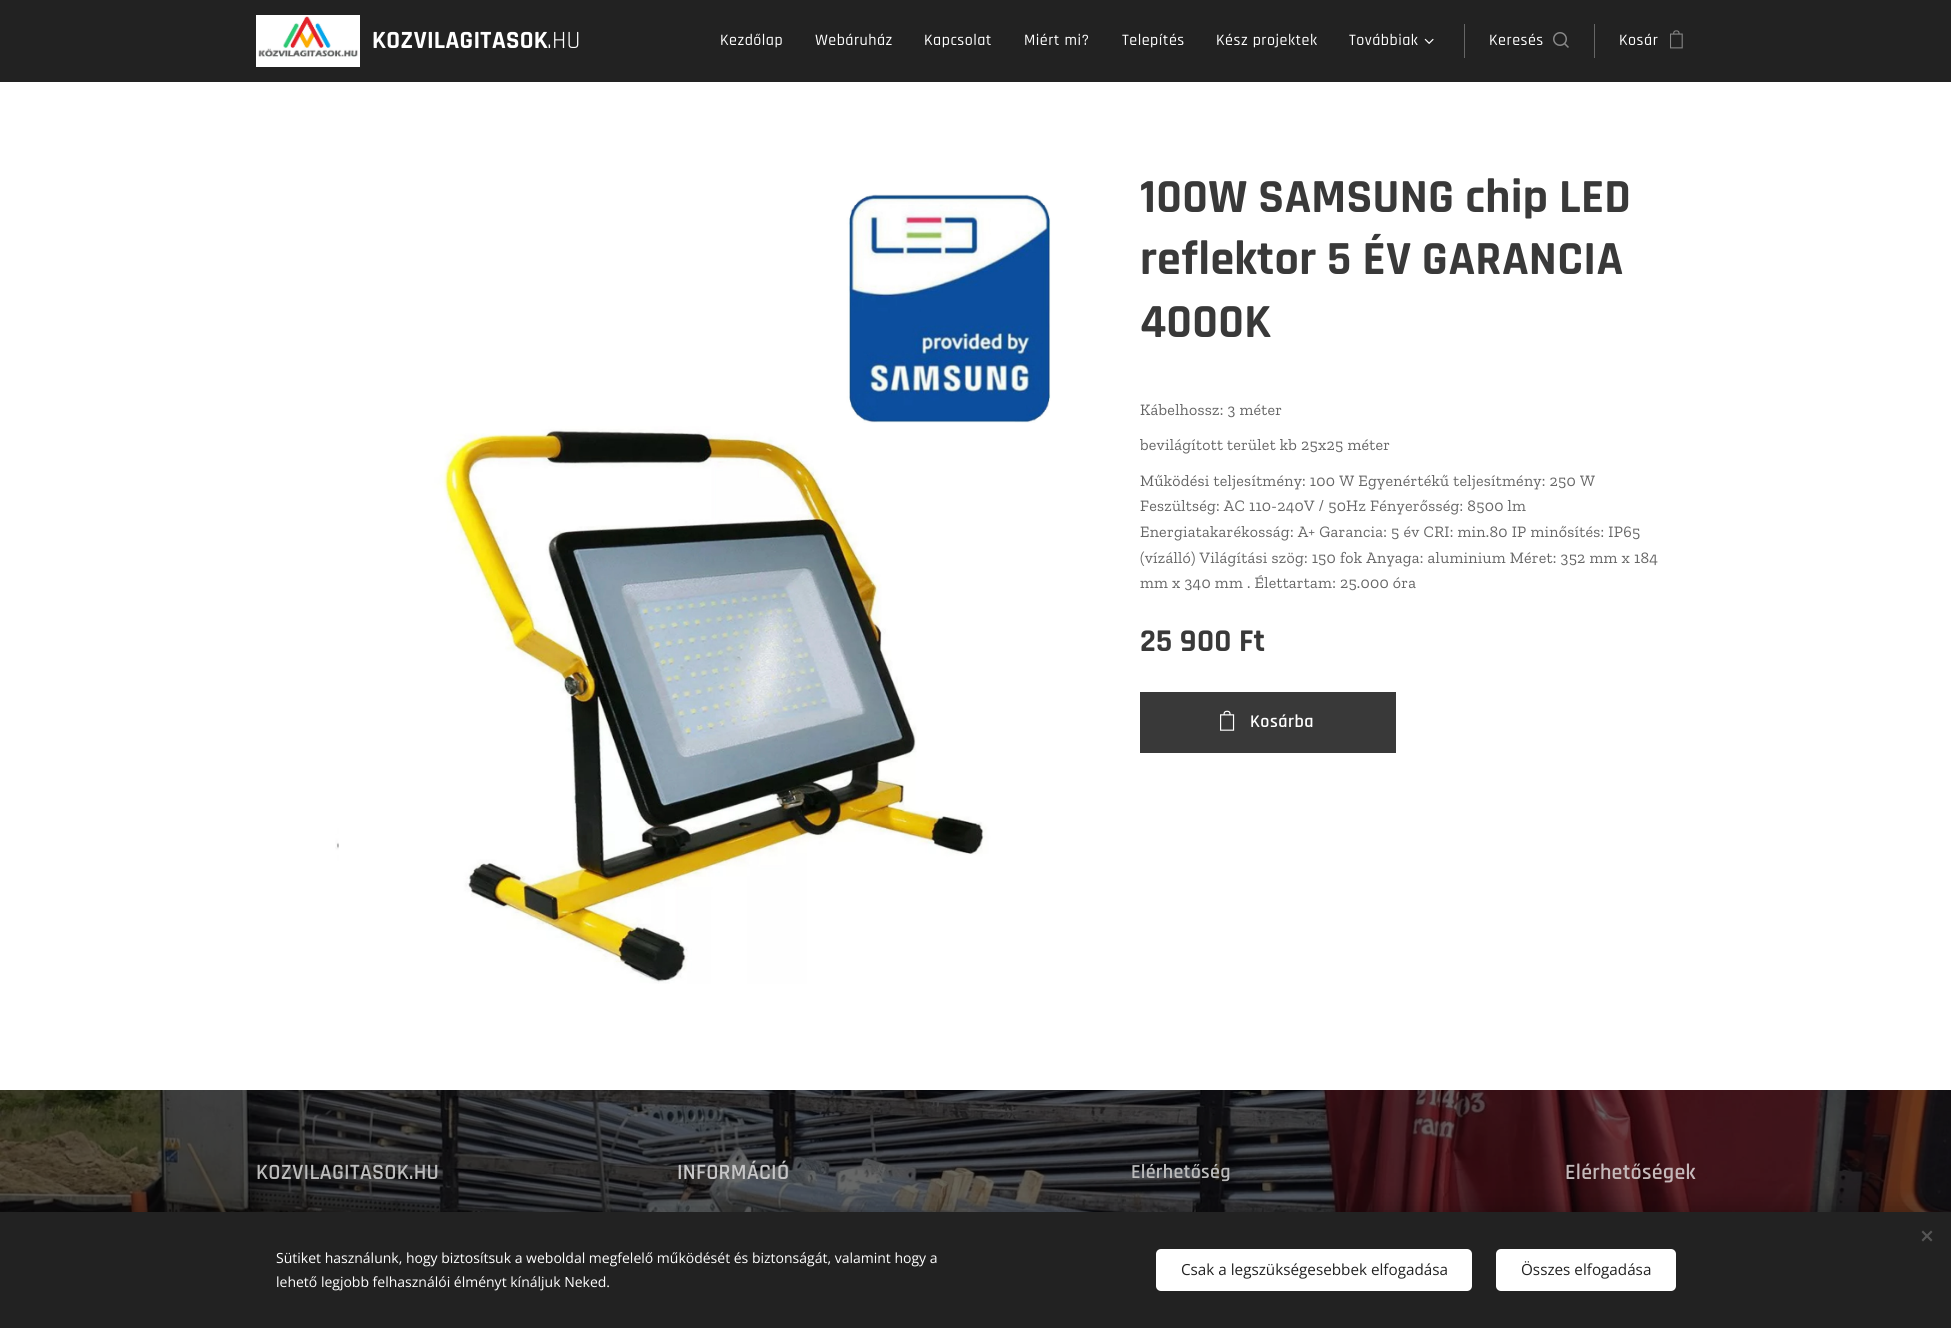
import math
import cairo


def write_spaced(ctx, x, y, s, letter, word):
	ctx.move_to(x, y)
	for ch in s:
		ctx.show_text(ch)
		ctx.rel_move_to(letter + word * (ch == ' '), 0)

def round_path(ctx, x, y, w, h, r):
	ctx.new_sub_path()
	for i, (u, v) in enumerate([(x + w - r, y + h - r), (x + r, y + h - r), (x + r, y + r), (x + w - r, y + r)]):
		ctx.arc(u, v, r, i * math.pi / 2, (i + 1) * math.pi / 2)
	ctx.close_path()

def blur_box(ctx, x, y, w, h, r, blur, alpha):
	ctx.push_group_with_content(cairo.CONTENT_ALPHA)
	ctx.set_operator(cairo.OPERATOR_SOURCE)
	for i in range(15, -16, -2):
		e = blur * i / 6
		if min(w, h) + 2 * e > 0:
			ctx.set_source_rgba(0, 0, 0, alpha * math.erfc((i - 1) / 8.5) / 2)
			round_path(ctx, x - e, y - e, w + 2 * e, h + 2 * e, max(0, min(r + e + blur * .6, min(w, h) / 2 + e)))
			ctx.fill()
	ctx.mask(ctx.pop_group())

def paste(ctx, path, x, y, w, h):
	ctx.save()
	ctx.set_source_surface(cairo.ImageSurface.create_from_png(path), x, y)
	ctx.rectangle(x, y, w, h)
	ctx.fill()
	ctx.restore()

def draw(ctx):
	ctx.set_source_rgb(1, 1, 1)
	ctx.paint()
	ctx.set_source_rgb(0.133, 0.133, 0.133)
	ctx.rectangle(0, 0, 1951, 82)
	ctx.fill()
	paste(ctx, 'media/1.png', 256, 15, 104, 52)
	ctx.select_font_face('Rajdhani', cairo.FONT_SLANT_NORMAL, cairo.FONT_WEIGHT_BOLD)
	ctx.set_font_size(25)
	ctx.set_source_rgb(1, 1, 1)
	write_spaced(ctx, 372, 48, 'KOZVILAGITASOK', 0.27, 0)
	ctx.select_font_face('Rajdhani')
	write_spaced(ctx, 547, 48, '.HU', 0.27, 0)
	ctx.select_font_face('Rajdhani Medium')
	ctx.set_font_size(16)
	for x, y, s in [
		(720, 45, 'Kezdőlap'),
		(815, 45, 'Webáruház'),
		(924, 45, 'Kapcsolat'),
		(1024, 45, 'Miért mi?'),
		(1122, 45, 'Telepítés'),
		(1216, 45, 'Kész projektek'),
		(1349, 45, 'Továbbiak'),
	]:
		write_spaced(ctx, x, y, s, 0.5, 0)
	paste(ctx, 'media/2.png', 1424, 38, 10, 6)
	ctx.set_source_rgb(0.4, 0.4, 0.4)
	ctx.rectangle(1464, 24, 1, 34)
	ctx.fill()
	ctx.set_source_rgb(1, 1, 1)
	write_spaced(ctx, 1489, 45, 'Keresés', 0.5, 0)
	paste(ctx, 'media/3.png', 1553, 32, 16, 16)
	ctx.set_source_rgb(0.4, 0.4, 0.4)
	ctx.rectangle(1594, 24, 1, 34)
	ctx.fill()
	ctx.set_source_rgb(1, 1, 1)
	write_spaced(ctx, 1619, 45, 'Kosár', 0.5, 0)
	paste(ctx, 'media/4.png', 1670, 30, 13, 19)
	paste(ctx, 'media/5.png', 335, 194, 716, 790)
	ctx.select_font_face('Rajdhani', cairo.FONT_SLANT_NORMAL, cairo.FONT_WEIGHT_BOLD)
	ctx.set_font_size(48)
	ctx.set_source_rgb(0.224, 0.224, 0.224)
	for x, y, s in [
		(1140, 212, '100W SAMSUNG chip LED'),
		(1140, 274, 'reflektor 5 ÉV GARANCIA'),
		(1140, 337, '4000K'),
	]:
		write_spaced(ctx, x, y, s, 0.27, 0)
	ctx.select_font_face('Zilla Slab')
	ctx.set_font_size(16)
	ctx.set_source_rgb(0.4, 0.4, 0.4)
	for x, y, s in [
		(1140, 415, 'Kábelhossz: 3 méter'),
		(1140, 450, 'bevilágított terület kb 25x25 méter'),
		(1140, 486, 'Működési teljesítmény: 100 W Egyenértékű teljesítmény: 250 W'),
		(1140, 511, 'Feszültség: AC 110-240V / 50Hz Fényerősség: 8500 lm'),
		(1140, 537, 'Energiatakarékosság: A+ Garancia: 5 év CRI: min.80 IP minősítés: IP65'),
		(1140, 563, '(vízálló) Világítási szög: 150 fok Anyaga: aluminium Méret: 352 mm x 184'),
		(1140, 588, 'mm x 340 mm . Élettartam: 25.000 óra'),
	]:
		write_spaced(ctx, x, y, s, 0.27, 0)
	ctx.select_font_face('Rajdhani', cairo.FONT_SLANT_NORMAL, cairo.FONT_WEIGHT_BOLD)
	ctx.set_font_size(32)
	ctx.set_source_rgb(0.224, 0.224, 0.224)
	write_spaced(ctx, 1140, 651, '25 900 Ft', 0.27, 0)
	ctx.rectangle(1140, 692, 256, 61)
	ctx.fill()
	paste(ctx, 'media/6.png', 1220, 710, 15, 21)
	ctx.select_font_face('Rajdhani SemiBold')
	ctx.set_font_size(18)
	ctx.set_source_rgb(1, 1, 1)
	write_spaced(ctx, 1250, 727, 'Kosárba', 0.5, 0)
	paste(ctx, 'media/7.png', 0, 1090, 1951, 122)
	ctx.set_font_size(22)
	ctx.set_source_rgb(0.737, 0.737, 0.737)
	write_spaced(ctx, 256, 1179, 'KOZVILAGITASOK.HU', 0.25, 0)
	ctx.set_source_rgb(0.78, 0.78, 0.784)
	write_spaced(ctx, 677, 1179, 'INFORMÁCIÓ', 0.25, 0)
	ctx.set_font_size(20)
	ctx.set_source_rgb(0.737, 0.737, 0.737)
	write_spaced(ctx, 1131, 1178, 'Elérhetőség', 0.25, 0)
	ctx.set_font_size(22)
	ctx.set_source_rgb(0.773, 0.725, 0.729)
	write_spaced(ctx, 1565, 1179, 'Elérhetőségek', 0.25, 0)
	ctx.set_source_rgb(0, 0, 0)
	blur_box(ctx, 0, 1212, 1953, 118, 0, 12.5, 0.33)
	ctx.set_source_rgb(0.133, 0.133, 0.133)
	ctx.rectangle(0, 1212, 1951, 116)
	ctx.fill()
	ctx.set_source_rgb(0.333, 0.333, 0.333)
	ctx.new_path()
	ctx.move_to(1921.5, 1240)
	ctx.line_to(1931, 1230.5)
	ctx.line_to(1932.5, 1232)
	ctx.line_to(1923, 1241.5)
	ctx.close_path()
	ctx.fill()
	ctx.new_path()
	ctx.move_to(1923, 1230.5)
	ctx.line_to(1932.5, 1240)
	ctx.line_to(1931, 1241.5)
	ctx.line_to(1921.5, 1232)
	ctx.close_path()
	ctx.fill()
	ctx.select_font_face('Open Sans')
	ctx.set_font_size(14)
	ctx.set_source_rgb(1, 1, 1)
	ctx.move_to(276, 1263)
	ctx.show_text('Sütiket használunk, hogy biztosítsuk a weboldal megfelelő működését és biztonságát, valamint hogy a')
	ctx.move_to(276, 1287)
	ctx.show_text('lehető legjobb felhasználói élményt kínáljuk Neked.')
	round_path(ctx, 1156, 1249, 316, 42, 5)
	ctx.fill()
	ctx.set_font_size(15.25)
	ctx.set_source_rgb(0.133, 0.133, 0.133)
	ctx.move_to(1181, 1275)
	ctx.show_text('Csak a legszükségesebbek elfogadása')
	ctx.set_source_rgb(1, 1, 1)
	round_path(ctx, 1496, 1249, 180, 42, 5)
	ctx.fill()
	ctx.set_source_rgb(0.133, 0.133, 0.133)
	ctx.move_to(1521, 1275)
	ctx.show_text('Összes elfogadása')


surface = cairo.ImageSurface(cairo.FORMAT_RGB24, 1951, 1328)
ctx = cairo.Context(surface)
options = cairo.FontOptions()
options.set_hint_metrics(cairo.HINT_METRICS_OFF)
options.set_hint_style(cairo.HINT_STYLE_NONE)
ctx.set_font_options(options)
ctx.set_miter_limit(4)
draw(ctx)
surface.write_to_png('image.png')
